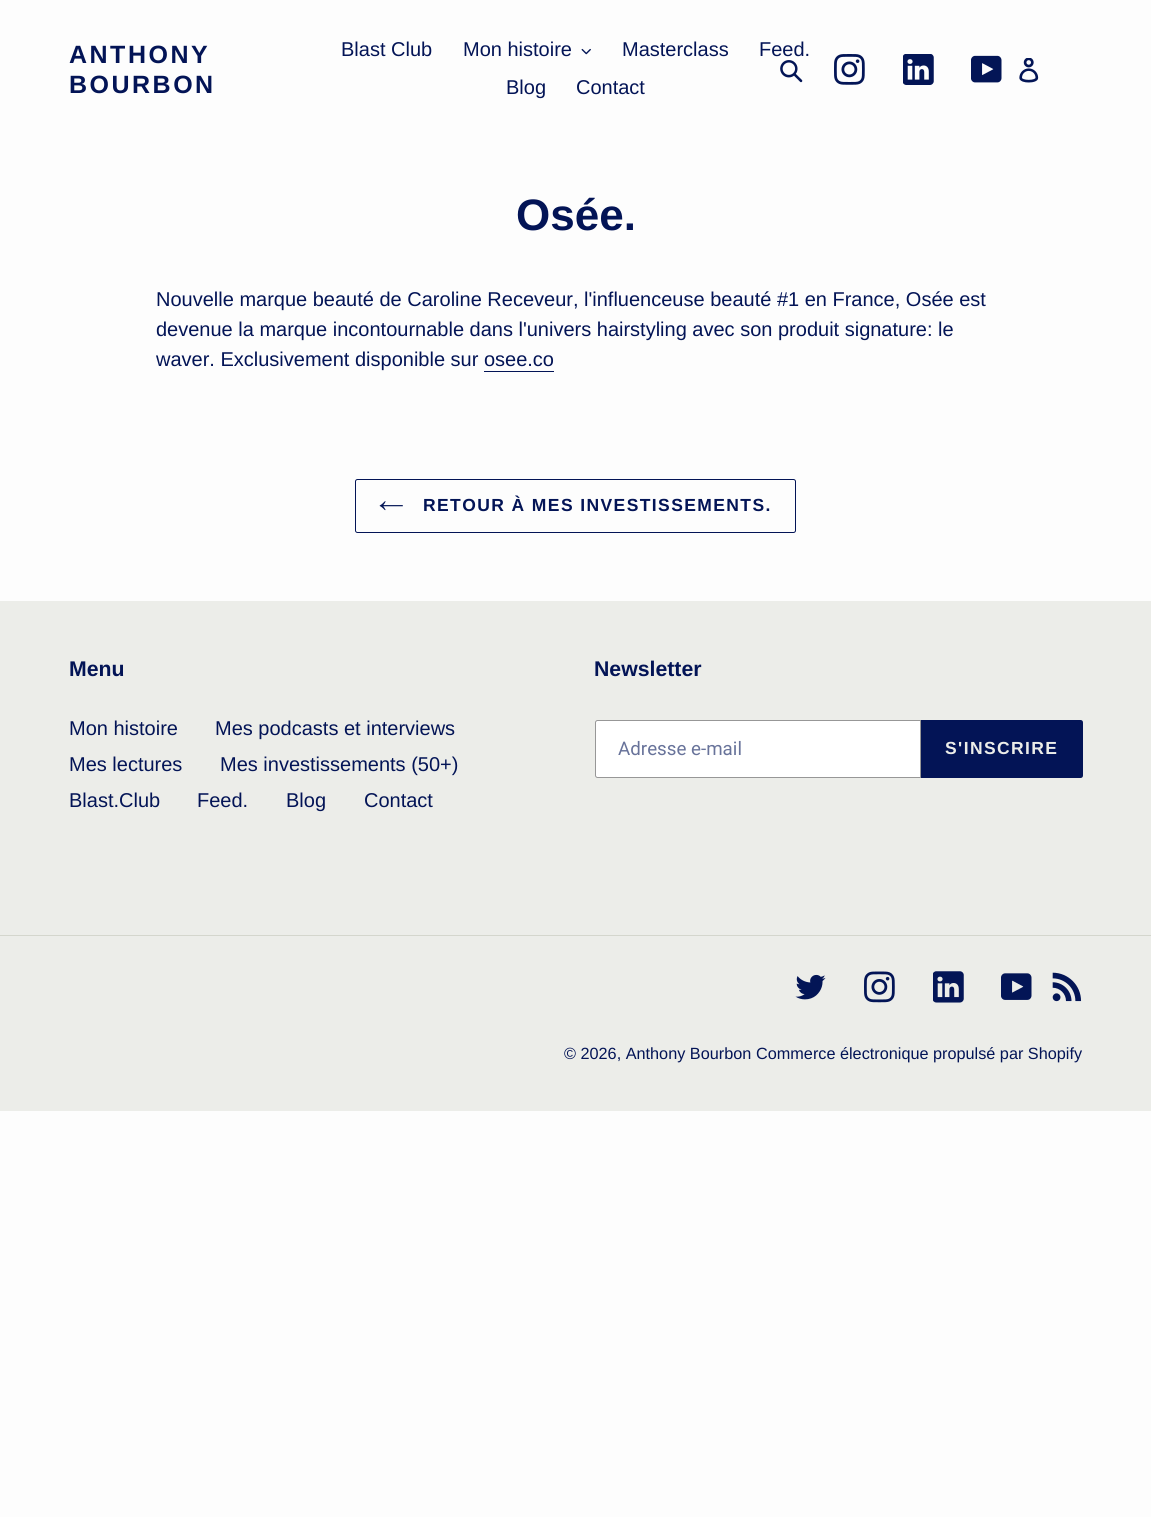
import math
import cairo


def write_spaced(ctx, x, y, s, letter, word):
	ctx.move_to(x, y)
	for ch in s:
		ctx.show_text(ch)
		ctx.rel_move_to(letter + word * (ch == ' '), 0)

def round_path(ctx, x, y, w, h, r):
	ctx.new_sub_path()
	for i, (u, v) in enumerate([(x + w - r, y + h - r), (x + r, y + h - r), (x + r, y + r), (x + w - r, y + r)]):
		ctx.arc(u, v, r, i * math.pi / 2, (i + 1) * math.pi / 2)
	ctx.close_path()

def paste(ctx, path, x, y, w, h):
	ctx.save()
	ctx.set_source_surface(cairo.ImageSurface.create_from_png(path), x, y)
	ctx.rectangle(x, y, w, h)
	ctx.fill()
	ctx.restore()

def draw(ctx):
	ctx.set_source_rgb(0.992, 0.992, 0.992)
	ctx.paint()
	ctx.select_font_face('Liberation Sans', cairo.FONT_SLANT_NORMAL, cairo.FONT_WEIGHT_BOLD)
	ctx.set_font_size(25)
	ctx.set_source_rgb(0.012, 0.082, 0.337)
	write_spaced(ctx, 69, 63, 'ANTHONY', 2.5, 0)
	write_spaced(ctx, 69, 93, 'BOURBON', 2.5, 0)
	ctx.select_font_face('Liberation Sans')
	ctx.set_font_size(20)
	ctx.move_to(341, 56)
	ctx.show_text('Blast Club')
	ctx.move_to(463, 56)
	ctx.show_text('Mon histoire')
	paste(ctx, 'media/1.png', 581, 48, 10, 7)
	for x, y, s in [
		(622, 56, 'Masterclass'),
		(759, 56, 'Feed.'),
		(506, 94, 'Blog'),
		(576, 94, 'Contact'),
	]:
		ctx.move_to(x, y)
		ctx.show_text(s)
	paste(ctx, 'media/2.png', 780, 60, 23, 23)
	paste(ctx, 'media/3.png', 834, 54, 31, 31)
	paste(ctx, 'media/4.png', 903, 54, 31, 31)
	paste(ctx, 'media/5.png', 971, 55, 31, 28)
	paste(ctx, 'media/6.png', 1019, 58, 20, 25)
	ctx.select_font_face('Liberation Sans', cairo.FONT_SLANT_NORMAL, cairo.FONT_WEIGHT_BOLD)
	ctx.set_font_size(44)
	ctx.move_to(516, 230)
	ctx.show_text('Osée.')
	ctx.select_font_face('Liberation Sans')
	ctx.set_font_size(20)
	for x, y, s in [
		(156, 306, 'Nouvelle marque beauté de Caroline Receveur, l\'influenceuse beauté #1 en France, Osée est'),
		(156, 336, 'devenue la marque incontournable dans l\'univers hairstyling avec son produit signature: le'),
		(156, 366, 'waver. Exclusivement disponible sur osee.co'),
	]:
		ctx.move_to(x, y)
		ctx.show_text(s)
	ctx.rectangle(484, 371, 70, 1)
	ctx.fill()
	round_path(ctx, 355.5, 479.5, 440, 53, 2)
	ctx.set_line_width(1)
	ctx.stroke()
	paste(ctx, 'media/7.png', 379, 501, 24, 10)
	ctx.select_font_face('Liberation Sans', cairo.FONT_SLANT_NORMAL, cairo.FONT_WEIGHT_BOLD)
	ctx.set_font_size(17.5)
	write_spaced(ctx, 423, 511, 'RETOUR À MES INVESTISSEMENTS.', 1.4, 0)
	ctx.set_source_rgb(0.925, 0.929, 0.914)
	ctx.rectangle(0, 601, 1151, 510)
	ctx.fill()
	ctx.set_font_size(21.25)
	ctx.set_source_rgb(0.012, 0.082, 0.337)
	ctx.move_to(69, 676)
	ctx.show_text('Menu')
	ctx.select_font_face('Liberation Sans')
	ctx.set_font_size(20)
	for x, y, s in [
		(69, 735, 'Mon histoire'),
		(215, 735, 'Mes podcasts et interviews'),
		(69, 771, 'Mes lectures'),
		(220, 771, 'Mes investissements (50+)'),
		(69, 807, 'Blast.Club'),
		(197, 807, 'Feed.'),
		(286, 807, 'Blog'),
		(364, 807, 'Contact'),
	]:
		ctx.move_to(x, y)
		ctx.show_text(s)
	ctx.select_font_face('Liberation Sans', cairo.FONT_SLANT_NORMAL, cairo.FONT_WEIGHT_BOLD)
	ctx.set_font_size(21.25)
	ctx.move_to(594, 676)
	ctx.show_text('Newsletter')
	ctx.set_source_rgb(1, 1, 1)
	ctx.new_path()
	ctx.move_to(597.5, 720.5)
	ctx.line_to(920.5, 720.5)
	ctx.line_to(920.5, 777.5)
	ctx.line_to(597.5, 777.5)
	ctx.curve_to(596.5, 777.5, 595.5, 776.5, 595.5, 775.5)
	ctx.line_to(595.5, 722.5)
	ctx.curve_to(595.5, 721.5, 596.5, 720.5, 597.5, 720.5)
	ctx.close_path()
	ctx.fill_preserve()
	ctx.set_source_rgb(0.592, 0.592, 0.592)
	ctx.stroke()
	ctx.select_font_face('Roboto')
	ctx.set_font_size(18.75)
	ctx.set_source_rgb(0.408, 0.451, 0.604)
	ctx.move_to(618, 755)
	ctx.show_text('Adresse e-mail')
	ctx.set_source_rgb(0.012, 0.082, 0.337)
	ctx.new_path()
	ctx.move_to(921, 720)
	ctx.line_to(1080.5, 720)
	ctx.curve_to(1082, 720, 1083, 721, 1083, 722.5)
	ctx.line_to(1083, 775.5)
	ctx.curve_to(1083, 777, 1082, 778, 1080.5, 778)
	ctx.line_to(921, 778)
	ctx.close_path()
	ctx.fill()
	ctx.select_font_face('Liberation Sans', cairo.FONT_SLANT_NORMAL, cairo.FONT_WEIGHT_BOLD)
	ctx.set_font_size(17.5)
	ctx.set_source_rgb(0.925, 0.929, 0.914)
	write_spaced(ctx, 945, 754, 'S\'INSCRIRE', 1.4, 0)
	ctx.set_source_rgb(0.831, 0.839, 0.804)
	ctx.rectangle(0, 935, 1151, 1)
	ctx.fill()
	paste(ctx, 'media/8.png', 795, 974, 31, 26)
	paste(ctx, 'media/9.png', 864, 971, 31, 32)
	paste(ctx, 'media/10.png', 933, 971, 31, 32)
	paste(ctx, 'media/11.png', 1001, 973, 31, 27)
	paste(ctx, 'media/12.png', 1052, 972, 30, 30)
	ctx.select_font_face('Liberation Sans')
	ctx.set_font_size(16.25)
	ctx.set_source_rgb(0.012, 0.082, 0.337)
	ctx.move_to(564, 1059)
	ctx.show_text('© 2026, Anthony Bourbon')
	ctx.move_to(756, 1059)
	ctx.show_text('Commerce électronique propulsé par Shopify')


surface = cairo.ImageSurface(cairo.FORMAT_RGB24, 1151, 1517)
ctx = cairo.Context(surface)
options = cairo.FontOptions()
options.set_hint_metrics(cairo.HINT_METRICS_OFF)
options.set_hint_style(cairo.HINT_STYLE_NONE)
ctx.set_font_options(options)
ctx.set_miter_limit(4)
draw(ctx)
surface.write_to_png('image.png')
